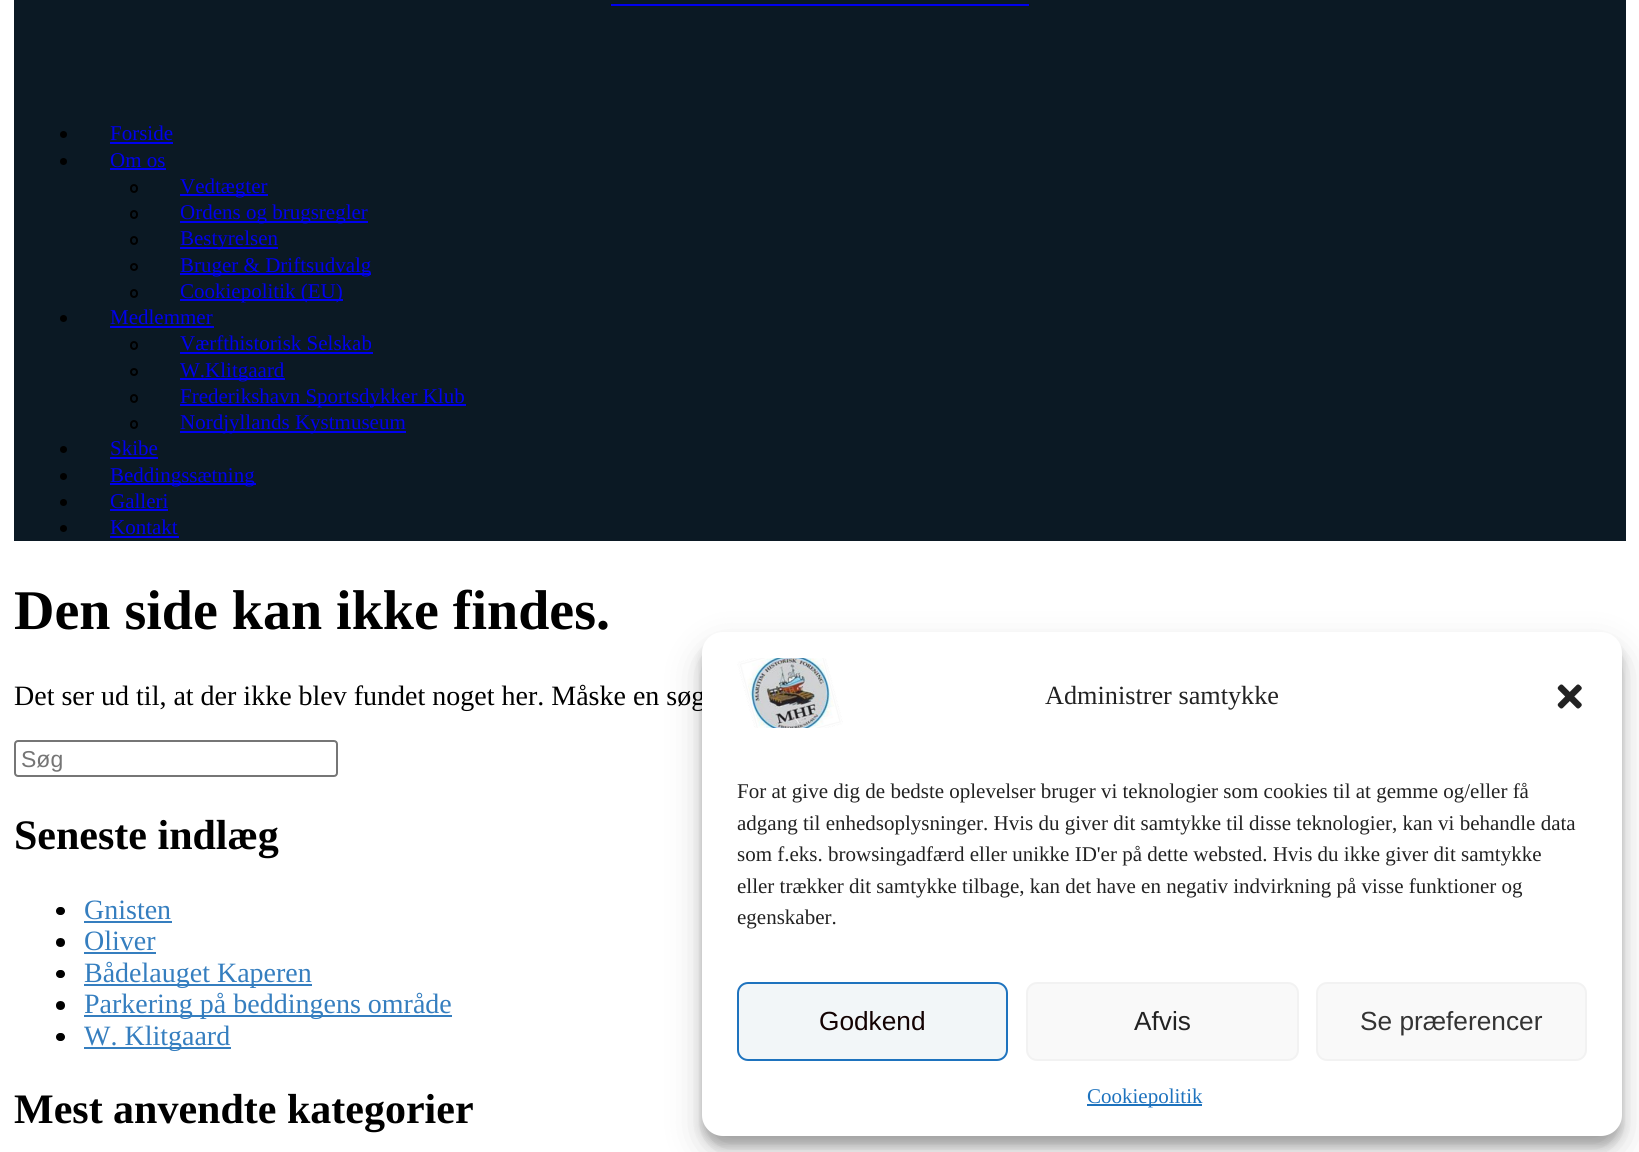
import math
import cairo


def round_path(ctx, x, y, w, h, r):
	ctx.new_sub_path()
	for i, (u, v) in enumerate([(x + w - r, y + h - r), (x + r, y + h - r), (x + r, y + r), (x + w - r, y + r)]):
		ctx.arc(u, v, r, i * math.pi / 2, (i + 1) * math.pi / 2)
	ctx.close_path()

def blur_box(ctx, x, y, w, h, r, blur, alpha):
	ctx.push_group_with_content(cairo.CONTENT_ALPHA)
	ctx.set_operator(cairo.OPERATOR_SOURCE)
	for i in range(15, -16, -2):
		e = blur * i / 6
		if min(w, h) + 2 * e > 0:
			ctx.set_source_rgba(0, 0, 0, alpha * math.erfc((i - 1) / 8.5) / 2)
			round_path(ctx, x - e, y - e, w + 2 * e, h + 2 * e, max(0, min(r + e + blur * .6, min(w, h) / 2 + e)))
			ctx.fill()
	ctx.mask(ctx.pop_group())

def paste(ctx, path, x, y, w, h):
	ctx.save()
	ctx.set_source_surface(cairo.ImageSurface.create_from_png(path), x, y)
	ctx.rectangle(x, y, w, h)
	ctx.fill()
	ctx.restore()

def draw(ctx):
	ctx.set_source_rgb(1, 1, 1)
	ctx.paint()
	ctx.set_source_rgb(0.043, 0.098, 0.141)
	ctx.rectangle(14, 0, 1612, 541)
	ctx.fill()
	ctx.set_source_rgb(0, 0, 0.933)
	ctx.rectangle(611, 4, 418, 2)
	ctx.fill()
	ctx.set_source_rgb(0, 0, 0)
	ctx.arc(63.5, 134.5, 3.5, 0, 2 * math.pi)
	ctx.fill()
	ctx.select_font_face('Liberation Serif')
	ctx.set_font_size(21)
	ctx.set_source_rgb(0, 0, 0.933)
	ctx.move_to(110, 140)
	ctx.show_text('Forside')
	ctx.rectangle(110, 142, 63, 2)
	ctx.fill()
	ctx.set_source_rgb(0, 0, 0)
	ctx.arc(63.5, 161.5, 3.5, 0, 2 * math.pi)
	ctx.fill()
	ctx.set_source_rgb(0, 0, 0.933)
	ctx.move_to(110, 167)
	ctx.show_text('Om os')
	ctx.rectangle(110, 168, 56, 2)
	ctx.fill()
	round_path(ctx, 131, 185, 6, 7, 3)
	ctx.set_source_rgb(0, 0, 0)
	ctx.stroke()
	ctx.set_source_rgb(0, 0, 0.933)
	ctx.rectangle(180, 194, 88, 2)
	ctx.fill()
	ctx.move_to(180, 193)
	ctx.show_text('Vedtægter')
	round_path(ctx, 131, 211, 6, 7, 3)
	ctx.set_source_rgb(0, 0, 0)
	ctx.stroke()
	ctx.set_source_rgb(0, 0, 0.933)
	ctx.rectangle(180, 221, 188, 2)
	ctx.fill()
	ctx.move_to(180, 219)
	ctx.show_text('Ordens og brugsregler')
	round_path(ctx, 131, 237, 6, 7, 3)
	ctx.set_source_rgb(0, 0, 0)
	ctx.stroke()
	ctx.set_source_rgb(0, 0, 0.933)
	ctx.rectangle(180, 247, 98, 2)
	ctx.fill()
	ctx.move_to(180, 245)
	ctx.show_text('Bestyrelsen')
	ctx.new_path()
	ctx.arc(134, 267, 3, 0, 2 * math.pi)
	ctx.set_source_rgb(0, 0, 0)
	ctx.stroke()
	ctx.set_source_rgb(0, 0, 0.933)
	ctx.rectangle(180, 273, 191, 2)
	ctx.fill()
	ctx.move_to(180, 272)
	ctx.show_text('Bruger & Driftsudvalg')
	round_path(ctx, 131, 290, 6, 7, 3)
	ctx.set_source_rgb(0, 0, 0)
	ctx.stroke()
	ctx.set_source_rgb(0, 0, 0.933)
	ctx.rectangle(180, 299, 163, 2)
	ctx.fill()
	ctx.move_to(180, 298)
	ctx.show_text('Cookiepolitik (EU)')
	ctx.set_source_rgb(0, 0, 0)
	ctx.new_path()
	ctx.arc(63.5, 318.5, 3.5, 0, 2 * math.pi)
	ctx.fill()
	ctx.set_source_rgb(0, 0, 0.933)
	ctx.move_to(110, 324)
	ctx.show_text('Medlemmer')
	ctx.rectangle(110, 326, 104, 2)
	ctx.fill()
	round_path(ctx, 131, 342, 6, 7, 3)
	ctx.set_source_rgb(0, 0, 0)
	ctx.stroke()
	ctx.set_source_rgb(0, 0, 0.933)
	ctx.move_to(180, 350)
	ctx.show_text('Værfthistorisk Selskab')
	ctx.rectangle(180, 352, 193, 2)
	ctx.fill()
	ctx.arc(134, 372, 3, 0, 2 * math.pi)
	ctx.set_source_rgb(0, 0, 0)
	ctx.stroke()
	ctx.set_source_rgb(0, 0, 0.933)
	ctx.rectangle(180, 378, 105, 2)
	ctx.fill()
	ctx.move_to(180, 377)
	ctx.show_text('W.Klitgaard')
	round_path(ctx, 131, 395, 6, 7, 3)
	ctx.set_source_rgb(0, 0, 0)
	ctx.stroke()
	ctx.set_source_rgb(0, 0, 0.933)
	ctx.rectangle(180, 404, 286, 2)
	ctx.fill()
	ctx.move_to(180, 403)
	ctx.show_text('Frederikshavn Sportsdykker Klub')
	round_path(ctx, 131, 421, 6, 7, 3)
	ctx.set_source_rgb(0, 0, 0)
	ctx.stroke()
	ctx.set_source_rgb(0, 0, 0.933)
	ctx.rectangle(180, 431, 226, 2)
	ctx.fill()
	ctx.move_to(180, 429)
	ctx.show_text('Nordjyllands Kystmuseum')
	ctx.set_source_rgb(0, 0, 0)
	ctx.new_path()
	ctx.arc(63.5, 449.5, 3.5, 0, 2 * math.pi)
	ctx.fill()
	ctx.set_source_rgb(0, 0, 0.933)
	ctx.move_to(110, 455)
	ctx.show_text('Skibe')
	ctx.rectangle(110, 457, 48, 2)
	ctx.fill()
	ctx.set_source_rgb(0, 0, 0)
	ctx.arc(63.5, 476.5, 3.5, 0, 2 * math.pi)
	ctx.fill()
	ctx.set_source_rgb(0, 0, 0.933)
	ctx.rectangle(110, 483, 146, 2)
	ctx.fill()
	ctx.move_to(110, 482)
	ctx.show_text('Beddingssætning')
	ctx.set_source_rgb(0, 0, 0)
	ctx.new_path()
	ctx.arc(63.5, 502.5, 3.5, 0, 2 * math.pi)
	ctx.fill()
	ctx.set_source_rgb(0, 0, 0.933)
	ctx.move_to(110, 508)
	ctx.show_text('Galleri')
	ctx.rectangle(110, 509, 58, 2)
	ctx.fill()
	ctx.set_source_rgb(0, 0, 0)
	ctx.arc(63.5, 528.5, 3.5, 0, 2 * math.pi)
	ctx.fill()
	ctx.set_source_rgb(0, 0, 0.933)
	ctx.move_to(110, 534)
	ctx.show_text('Kontakt')
	ctx.rectangle(110, 536, 69, 2)
	ctx.fill()
	ctx.select_font_face('Liberation Serif', cairo.FONT_SLANT_NORMAL, cairo.FONT_WEIGHT_BOLD)
	ctx.set_font_size(56)
	ctx.set_source_rgb(0, 0, 0)
	ctx.move_to(14, 629)
	ctx.show_text('Den side kan ikke findes.')
	ctx.select_font_face('Liberation Serif')
	ctx.set_font_size(28)
	ctx.move_to(14, 705)
	ctx.show_text('Det ser ud til, at der ikke blev fundet noget her. Måske en søg')
	round_path(ctx, 15, 741, 322, 35, 3)
	ctx.set_source_rgb(0.463, 0.463, 0.463)
	ctx.stroke()
	ctx.select_font_face('Liberation Sans')
	ctx.set_font_size(23)
	ctx.set_source_rgb(0.459, 0.459, 0.459)
	ctx.move_to(21, 767)
	ctx.show_text('Søg')
	ctx.select_font_face('Liberation Serif', cairo.FONT_SLANT_NORMAL, cairo.FONT_WEIGHT_BOLD)
	ctx.set_font_size(42)
	ctx.set_source_rgb(0, 0, 0)
	ctx.move_to(14, 849)
	ctx.show_text('Seneste indlæg')
	round_path(ctx, 56, 907, 9, 8, 4)
	ctx.fill()
	ctx.select_font_face('Liberation Serif')
	ctx.set_font_size(28)
	ctx.set_source_rgb(0.208, 0.494, 0.749)
	ctx.move_to(84, 919)
	ctx.show_text('Gnisten')
	ctx.rectangle(84, 921, 88, 2)
	ctx.fill()
	ctx.set_source_rgb(0, 0, 0)
	ctx.arc(60.5, 942.5, 4.5, 0, 2 * math.pi)
	ctx.fill()
	ctx.set_source_rgb(0.208, 0.494, 0.749)
	ctx.move_to(84, 950)
	ctx.show_text('Oliver')
	ctx.rectangle(84, 952, 72, 2)
	ctx.fill()
	ctx.set_source_rgb(0, 0, 0)
	round_path(ctx, 56, 970, 9, 8, 4)
	ctx.fill()
	ctx.set_source_rgb(0.208, 0.494, 0.749)
	ctx.rectangle(84, 984, 228, 2)
	ctx.fill()
	ctx.move_to(84, 982)
	ctx.show_text('Bådelauget Kaperen')
	ctx.set_source_rgb(0, 0, 0)
	ctx.new_path()
	ctx.arc(60.5, 1005.5, 4.5, 0, 2 * math.pi)
	ctx.fill()
	ctx.set_source_rgb(0.208, 0.494, 0.749)
	ctx.rectangle(84, 1015, 368, 2)
	ctx.fill()
	ctx.move_to(84, 1013)
	ctx.show_text('Parkering på beddingens område')
	ctx.set_source_rgb(0, 0, 0)
	round_path(ctx, 56, 1033, 9, 8, 4)
	ctx.fill()
	ctx.set_source_rgb(0.208, 0.494, 0.749)
	ctx.rectangle(84, 1047, 147, 2)
	ctx.fill()
	ctx.move_to(84, 1045)
	ctx.show_text('W. Klitgaard')
	ctx.select_font_face('Liberation Serif', cairo.FONT_SLANT_NORMAL, cairo.FONT_WEIGHT_BOLD)
	ctx.set_font_size(42)
	ctx.set_source_rgb(0, 0, 0)
	ctx.move_to(14, 1123)
	ctx.show_text('Mest anvendte kategorier')
	ctx.set_source_rgb(0, 0, 0)
	blur_box(ctx, 702, 642, 920, 504, 21, 5, 0.23)
	blur_box(ctx, 702, 649, 920, 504, 21, 17.5, 0.19)
	ctx.set_source_rgb(1, 1, 1)
	round_path(ctx, 702, 632, 920, 504, 21)
	ctx.fill()
	paste(ctx, 'media/1.png', 737, 658, 106, 70)
	ctx.select_font_face('Liberation Serif')
	ctx.set_font_size(26.25)
	ctx.set_source_rgb(0.133, 0.133, 0.133)
	ctx.move_to(1045, 704)
	ctx.show_text('Administrer samtykke')
	paste(ctx, 'media/2.png', 1557, 684, 25, 25)
	ctx.set_font_size(21)
	for x, y, s in [
		(737, 798, 'For at give dig de bedste oplevelser bruger vi teknologier som cookies til at gemme og/eller få'),
		(737, 830, 'adgang til enhedsoplysninger. Hvis du giver dit samtykke til disse teknologier, kan vi behandle data'),
		(737, 861, 'som f.eks. browsingadfærd eller unikke ID\'er på dette websted. Hvis du ikke giver dit samtykke'),
		(737, 893, 'eller trækker dit samtykke tilbage, kan det have en negativ indvirkning på visse funktioner og'),
		(737, 924, 'egenskaber.'),
	]:
		ctx.move_to(x, y)
		ctx.show_text(s)
	ctx.set_source_rgb(0.949, 0.961, 0.969)
	round_path(ctx, 738, 983, 269, 77, 10)
	ctx.fill_preserve()
	ctx.set_source_rgb(0.118, 0.451, 0.745)
	ctx.stroke()
	ctx.select_font_face('Liberation Sans')
	ctx.set_font_size(26.25)
	ctx.set_source_rgb(0.078, 0.008, 0.008)
	ctx.move_to(819, 1030)
	ctx.show_text('Godkend')
	ctx.set_source_rgb(0.976, 0.976, 0.976)
	round_path(ctx, 1027, 983, 271, 77, 10)
	ctx.fill_preserve()
	ctx.set_source_rgb(0.949, 0.949, 0.949)
	ctx.stroke()
	ctx.set_source_rgb(0.133, 0.133, 0.133)
	ctx.move_to(1134, 1030)
	ctx.show_text('Afvis')
	ctx.set_source_rgb(0.976, 0.976, 0.976)
	round_path(ctx, 1317, 983, 269, 77, 10)
	ctx.fill_preserve()
	ctx.set_source_rgb(0.949, 0.949, 0.949)
	ctx.stroke()
	ctx.set_source_rgb(0.2, 0.2, 0.2)
	ctx.move_to(1360, 1030)
	ctx.show_text('Se præferencer')
	ctx.set_source_rgb(0.118, 0.451, 0.745)
	ctx.rectangle(1087, 1104, 115, 2)
	ctx.fill()
	ctx.select_font_face('Liberation Serif')
	ctx.set_font_size(21)
	ctx.move_to(1087, 1103)
	ctx.show_text('Cookiepolitik')


surface = cairo.ImageSurface(cairo.FORMAT_RGB24, 1639, 1152)
ctx = cairo.Context(surface)
options = cairo.FontOptions()
options.set_hint_metrics(cairo.HINT_METRICS_OFF)
options.set_hint_style(cairo.HINT_STYLE_NONE)
ctx.set_font_options(options)
ctx.set_miter_limit(4)
draw(ctx)
surface.write_to_png('image.png')
